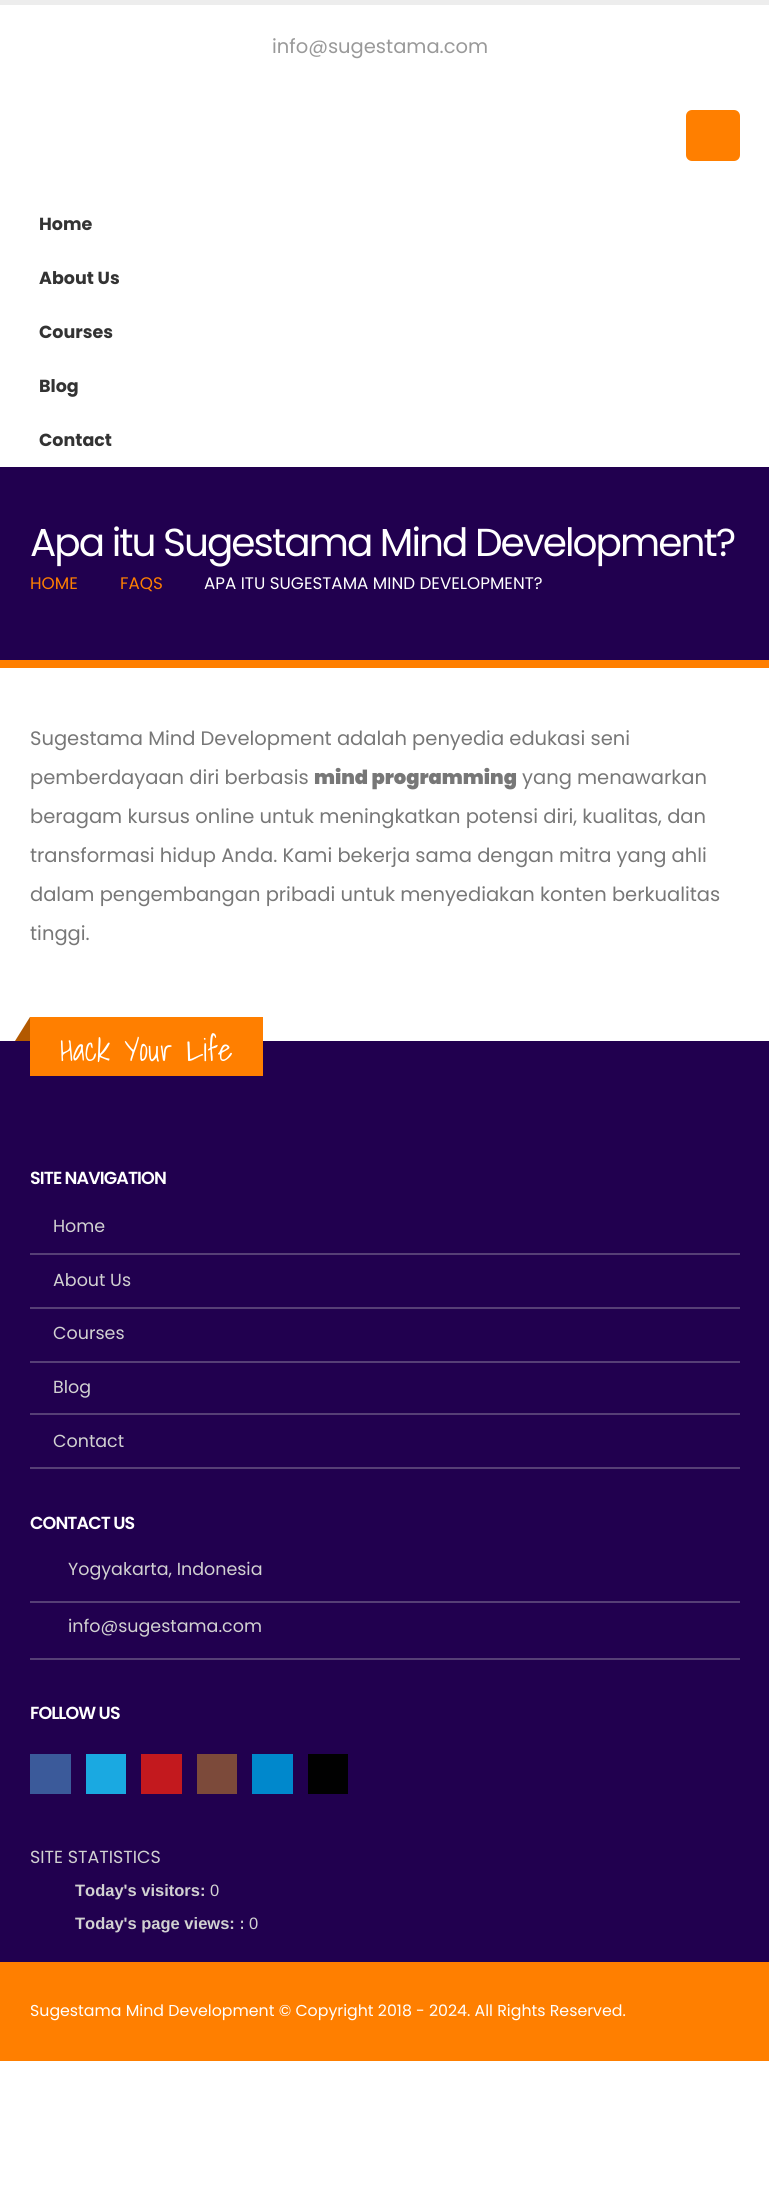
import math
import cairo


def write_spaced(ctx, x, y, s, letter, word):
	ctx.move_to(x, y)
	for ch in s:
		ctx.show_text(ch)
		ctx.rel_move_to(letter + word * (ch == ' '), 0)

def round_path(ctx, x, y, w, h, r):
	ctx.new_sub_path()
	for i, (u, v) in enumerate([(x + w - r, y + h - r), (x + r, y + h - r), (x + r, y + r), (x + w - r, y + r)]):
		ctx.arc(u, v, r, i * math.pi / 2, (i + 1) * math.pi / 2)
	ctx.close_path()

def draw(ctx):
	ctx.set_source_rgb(1, 1, 1)
	ctx.paint()
	ctx.set_source_rgb(0.929, 0.929, 0.929)
	ctx.rectangle(0, 0, 769, 5)
	ctx.fill()
	ctx.select_font_face('Poppins')
	ctx.set_font_size(19.5)
	ctx.set_source_rgb(0.6, 0.6, 0.6)
	ctx.move_to(272, 53)
	ctx.show_text('info@sugestama.com')
	ctx.set_source_rgb(1, 0.498, 0)
	round_path(ctx, 686, 110, 54, 51, 6)
	ctx.fill()
	ctx.select_font_face('Poppins', cairo.FONT_SLANT_NORMAL, cairo.FONT_WEIGHT_BOLD)
	ctx.set_font_size(17.5)
	ctx.set_source_rgb(0.2, 0.2, 0.2)
	for x, y, s in [
		(39, 230, 'Home'),
		(39, 284, 'About Us'),
		(39, 338, 'Courses'),
		(39, 392, 'Blog'),
		(39, 446, 'Contact'),
	]:
		ctx.move_to(x, y)
		ctx.show_text(s)
	ctx.set_source_rgb(0.129, 0, 0.31)
	ctx.rectangle(0, 467, 769, 193)
	ctx.fill()
	ctx.set_source_rgb(1, 0.498, 0)
	ctx.rectangle(0, 660, 769, 8)
	ctx.fill()
	ctx.select_font_face('Poppins')
	ctx.set_font_size(39)
	ctx.set_source_rgb(1, 1, 1)
	write_spaced(ctx, 30, 556, 'Apa itu Sugestama Mind Development?', -1.95, 0)
	ctx.set_font_size(16.75)
	ctx.set_source_rgb(1, 0.498, 0)
	ctx.move_to(30, 589)
	ctx.show_text('HOME')
	ctx.move_to(120, 589)
	ctx.show_text('FAQS')
	ctx.set_source_rgb(1, 1, 1)
	ctx.move_to(204, 589)
	ctx.show_text('APA ITU SUGESTAMA MIND DEVELOPMENT?')
	ctx.set_font_size(19.5)
	ctx.set_source_rgb(0.467, 0.467, 0.467)
	ctx.move_to(30, 745)
	ctx.show_text('Sugestama Mind Development adalah penyedia edukasi seni')
	ctx.move_to(30, 784)
	ctx.show_text('pemberdayaan diri berbasis')
	ctx.select_font_face('Poppins Black')
	ctx.move_to(314, 784)
	ctx.show_text('mind programming')
	ctx.select_font_face('Poppins')
	for x, y, s in [
		(522, 784, 'yang menawarkan'),
		(30, 823, 'beragam kursus online untuk meningkatkan potensi diri, kualitas, dan'),
		(30, 862, 'transformasi hidup Anda. Kami bekerja sama dengan mitra yang ahli'),
		(30, 901, 'dalam pengembangan pribadi untuk menyediakan konten berkualitas'),
		(30, 940, 'tinggi.'),
	]:
		ctx.move_to(x, y)
		ctx.show_text(s)
	ctx.set_source_rgb(0.129, 0, 0.31)
	ctx.rectangle(0, 1041, 769, 921)
	ctx.fill()
	ctx.set_source_rgb(1, 0.498, 0)
	ctx.rectangle(30, 1017, 233, 59)
	ctx.fill()
	ctx.set_source_rgb(0.702, 0.349, 0)
	ctx.new_path()
	ctx.move_to(30, 1017)
	ctx.line_to(30, 1041)
	ctx.line_to(15, 1041)
	ctx.close_path()
	ctx.fill()
	ctx.select_font_face('Shadows Into Light')
	ctx.set_font_size(31.25)
	ctx.set_source_rgb(1, 1, 1)
	ctx.move_to(60, 1061)
	ctx.show_text('Hack Your Life')
	ctx.select_font_face('Poppins SemiBold')
	ctx.set_font_size(17.5)
	write_spaced(ctx, 30, 1184, 'SITE NAVIGATION', -0.9, 0)
	ctx.set_source_rgb(0.337, 0.247, 0.463)
	ctx.rectangle(30, 1467, 710, 2)
	ctx.fill()
	ctx.select_font_face('Poppins')
	ctx.set_source_rgb(0.82, 0.82, 0.82)
	ctx.move_to(53, 1232)
	ctx.show_text('Home')
	ctx.set_source_rgb(0.337, 0.247, 0.463)
	ctx.rectangle(30, 1253, 710, 2)
	ctx.fill()
	ctx.set_source_rgb(0.82, 0.82, 0.82)
	ctx.move_to(53, 1286)
	ctx.show_text('About Us')
	ctx.set_source_rgb(0.337, 0.247, 0.463)
	ctx.rectangle(30, 1307, 710, 2)
	ctx.fill()
	ctx.set_source_rgb(0.82, 0.82, 0.82)
	ctx.move_to(53, 1339)
	ctx.show_text('Courses')
	ctx.set_source_rgb(0.337, 0.247, 0.463)
	ctx.rectangle(30, 1361, 710, 2)
	ctx.fill()
	ctx.set_source_rgb(0.82, 0.82, 0.82)
	ctx.move_to(53, 1393)
	ctx.show_text('Blog')
	ctx.set_source_rgb(0.337, 0.247, 0.463)
	ctx.rectangle(30, 1413, 710, 2)
	ctx.fill()
	ctx.set_source_rgb(0.82, 0.82, 0.82)
	ctx.move_to(53, 1447)
	ctx.show_text('Contact')
	ctx.select_font_face('Poppins SemiBold')
	ctx.set_source_rgb(1, 1, 1)
	write_spaced(ctx, 30, 1529, 'CONTACT US', -0.9, 0)
	ctx.set_source_rgb(0.337, 0.247, 0.463)
	ctx.rectangle(30, 1658, 710, 2)
	ctx.fill()
	ctx.select_font_face('Poppins')
	ctx.set_source_rgb(0.82, 0.82, 0.82)
	ctx.move_to(68, 1575)
	ctx.show_text('Yogyakarta, Indonesia')
	ctx.set_source_rgb(0.337, 0.247, 0.463)
	ctx.rectangle(30, 1601, 710, 2)
	ctx.fill()
	ctx.set_source_rgb(0.82, 0.82, 0.82)
	ctx.move_to(68, 1632)
	ctx.show_text('info@sugestama.com')
	ctx.select_font_face('Poppins SemiBold')
	ctx.set_source_rgb(1, 1, 1)
	write_spaced(ctx, 30, 1719, 'FOLLOW US', -0.9, 0)
	ctx.set_source_rgb(0.231, 0.353, 0.604)
	ctx.rectangle(30, 1754, 41, 40)
	ctx.fill()
	ctx.set_source_rgb(0.102, 0.663, 0.882)
	ctx.rectangle(86, 1754, 40, 40)
	ctx.fill()
	ctx.set_source_rgb(0.765, 0.098, 0.118)
	ctx.rectangle(141, 1754, 41, 40)
	ctx.fill()
	ctx.set_source_rgb(0.486, 0.29, 0.227)
	ctx.rectangle(197, 1754, 40, 40)
	ctx.fill()
	ctx.set_source_rgb(0, 0.533, 0.8)
	ctx.rectangle(252, 1754, 41, 40)
	ctx.fill()
	ctx.set_source_rgb(0.004, 0.004, 0.004)
	ctx.rectangle(308, 1754, 40, 40)
	ctx.fill()
	ctx.select_font_face('Poppins')
	ctx.set_source_rgb(0.82, 0.82, 0.82)
	ctx.move_to(30, 1863)
	ctx.show_text('SITE STATISTICS')
	ctx.select_font_face('Liberation Sans', cairo.FONT_SLANT_NORMAL, cairo.FONT_WEIGHT_BOLD)
	ctx.set_font_size(16.5)
	ctx.move_to(75, 1896)
	ctx.show_text('Today\'s visitors:')
	ctx.select_font_face('Liberation Sans')
	ctx.move_to(210, 1896)
	ctx.show_text('0')
	ctx.select_font_face('Liberation Sans', cairo.FONT_SLANT_NORMAL, cairo.FONT_WEIGHT_BOLD)
	ctx.move_to(75, 1929)
	ctx.show_text('Today\'s page views: :')
	ctx.select_font_face('Liberation Sans')
	ctx.move_to(249, 1929)
	ctx.show_text('0')
	ctx.set_source_rgb(1, 0.498, 0)
	ctx.rectangle(0, 1962, 769, 99)
	ctx.fill()
	ctx.select_font_face('Poppins')
	ctx.set_font_size(15.8)
	ctx.set_source_rgb(1, 1, 1)
	ctx.move_to(30, 2016)
	ctx.show_text('Sugestama Mind Development © Copyright 2018 - 2024. All Rights Reserved.')


surface = cairo.ImageSurface(cairo.FORMAT_RGB24, 769, 2191)
ctx = cairo.Context(surface)
options = cairo.FontOptions()
options.set_hint_metrics(cairo.HINT_METRICS_OFF)
options.set_hint_style(cairo.HINT_STYLE_NONE)
ctx.set_font_options(options)
ctx.set_miter_limit(4)
draw(ctx)
surface.write_to_png('image.png')
